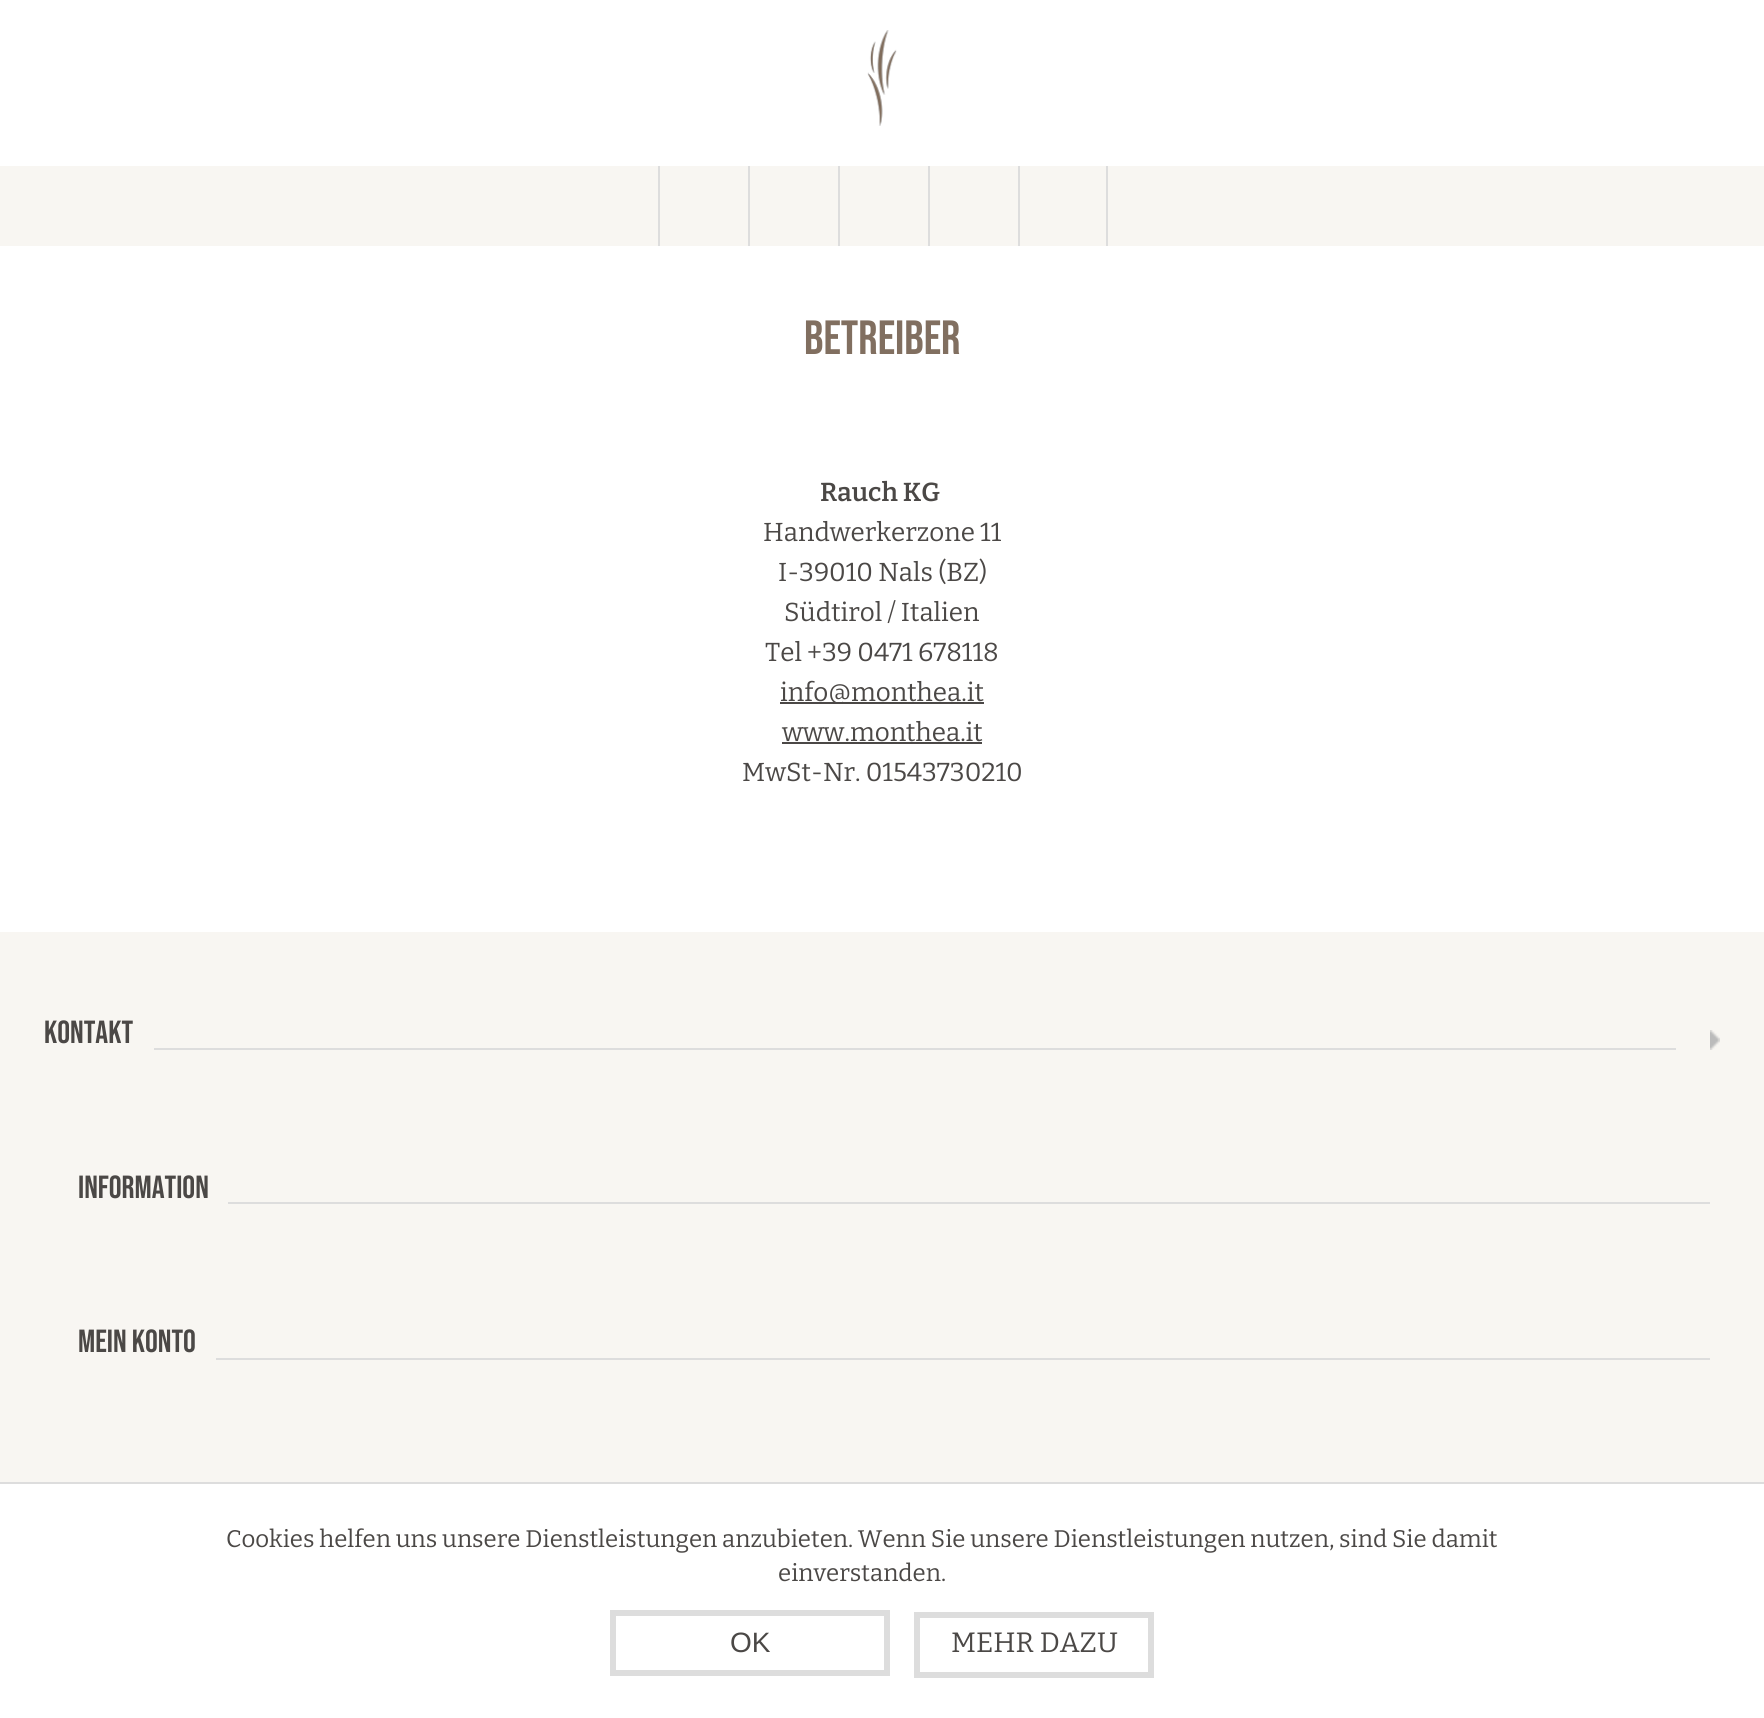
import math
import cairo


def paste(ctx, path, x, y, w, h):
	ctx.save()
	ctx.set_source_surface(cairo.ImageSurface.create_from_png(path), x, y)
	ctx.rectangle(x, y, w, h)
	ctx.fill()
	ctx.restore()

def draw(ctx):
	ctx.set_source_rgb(1, 1, 1)
	ctx.paint()
	paste(ctx, 'media/1.png', 867, 30, 30, 96)
	ctx.set_source_rgb(0.969, 0.961, 0.949)
	ctx.rectangle(0, 166, 1764, 80)
	ctx.fill()
	ctx.set_source_rgb(0.867, 0.867, 0.867)
	ctx.rectangle(658, 166, 2, 80)
	ctx.rectangle(748, 166, 2, 80)
	ctx.rectangle(838, 166, 2, 80)
	ctx.rectangle(928, 166, 2, 80)
	ctx.rectangle(1106, 166, 2, 80)
	ctx.rectangle(1018, 166, 2, 80)
	ctx.fill()
	ctx.select_font_face('Bebas Neue')
	ctx.set_font_size(48)
	ctx.set_source_rgb(0.506, 0.435, 0.376)
	ctx.move_to(804, 354)
	ctx.show_text('BETREIBER')
	ctx.select_font_face('Bitter SemiBold')
	ctx.set_font_size(26)
	ctx.set_source_rgb(0.294, 0.282, 0.275)
	ctx.move_to(820, 501)
	ctx.show_text('Rauch KG')
	ctx.select_font_face('Bitter')
	for x, y, s in [
		(763, 541, 'Handwerkerzone 11'),
		(778, 581, 'I-39010 Nals (BZ)'),
		(784, 621, 'Südtirol / Italien'),
		(765, 661, 'Tel +39 0471 678118'),
	]:
		ctx.move_to(x, y)
		ctx.show_text(s)
	ctx.rectangle(780, 702, 204, 2)
	ctx.fill()
	ctx.move_to(780, 701)
	ctx.show_text('info@monthea.it')
	ctx.move_to(782, 741)
	ctx.show_text('www.monthea.it')
	ctx.rectangle(782, 742, 200, 2)
	ctx.fill()
	ctx.move_to(742, 781)
	ctx.show_text('MwSt-Nr. 01543730210')
	ctx.set_source_rgb(0.969, 0.961, 0.949)
	ctx.rectangle(0, 932, 1764, 550)
	ctx.fill()
	ctx.select_font_face('Bebas Neue')
	ctx.set_font_size(32)
	ctx.set_source_rgb(0.294, 0.282, 0.275)
	ctx.move_to(44, 1043)
	ctx.show_text('KONTAKT')
	paste(ctx, 'media/2.png', 1710, 1030, 10, 20)
	ctx.set_source_rgb(0.867, 0.867, 0.867)
	ctx.rectangle(154, 1048, 1522, 2)
	ctx.fill()
	ctx.set_source_rgb(0.294, 0.282, 0.275)
	ctx.move_to(78, 1198)
	ctx.show_text('INFORMATION')
	ctx.set_source_rgb(0.867, 0.867, 0.867)
	ctx.rectangle(228, 1202, 1482, 2)
	ctx.fill()
	ctx.set_source_rgb(0.294, 0.282, 0.275)
	ctx.move_to(78, 1352)
	ctx.show_text('MEIN KONTO')
	ctx.set_source_rgb(0.867, 0.867, 0.867)
	ctx.rectangle(216, 1358, 1494, 2)
	ctx.fill()
	ctx.save()
	ctx.rectangle(44, 992, 1676, 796)
	ctx.clip()
	ctx.rectangle(34, 1468, 74, 64)
	ctx.set_source_rgb(0.969, 0.961, 0.949)
	ctx.set_line_width(20)
	ctx.stroke()
	ctx.restore()
	ctx.set_source_rgb(1, 1, 1)
	ctx.rectangle(44, 1484, 74, 58)
	ctx.fill()
	ctx.set_source_rgb(0.867, 0.867, 0.867)
	ctx.rectangle(0, 1482, 1764, 2)
	ctx.fill()
	ctx.select_font_face('Bitter')
	ctx.set_font_size(24)
	ctx.set_source_rgb(0.294, 0.282, 0.275)
	ctx.move_to(226, 1547)
	ctx.show_text('Cookies helfen uns unsere Dienstleistungen anzubieten. Wenn Sie unsere Dienstleistungen nutzen, sind Sie damit')
	ctx.move_to(778, 1581)
	ctx.show_text('einverstanden.')
	ctx.rectangle(613, 1613, 274, 60)
	ctx.set_source_rgb(0.867, 0.867, 0.867)
	ctx.set_line_width(6)
	ctx.stroke()
	ctx.select_font_face('Liberation Sans')
	ctx.set_font_size(28)
	ctx.set_source_rgb(0.294, 0.282, 0.275)
	ctx.move_to(730, 1652)
	ctx.show_text('OK')
	ctx.rectangle(917, 1615, 234, 60)
	ctx.set_source_rgb(0.867, 0.867, 0.867)
	ctx.stroke()
	ctx.select_font_face('Bitter')
	ctx.set_source_rgb(0.294, 0.282, 0.275)
	ctx.move_to(951, 1652)
	ctx.show_text('MEHR DAZU')


surface = cairo.ImageSurface(cairo.FORMAT_RGB24, 1764, 1718)
ctx = cairo.Context(surface)
options = cairo.FontOptions()
options.set_hint_metrics(cairo.HINT_METRICS_OFF)
options.set_hint_style(cairo.HINT_STYLE_NONE)
ctx.set_font_options(options)
ctx.set_miter_limit(4)
draw(ctx)
surface.write_to_png('image.png')
